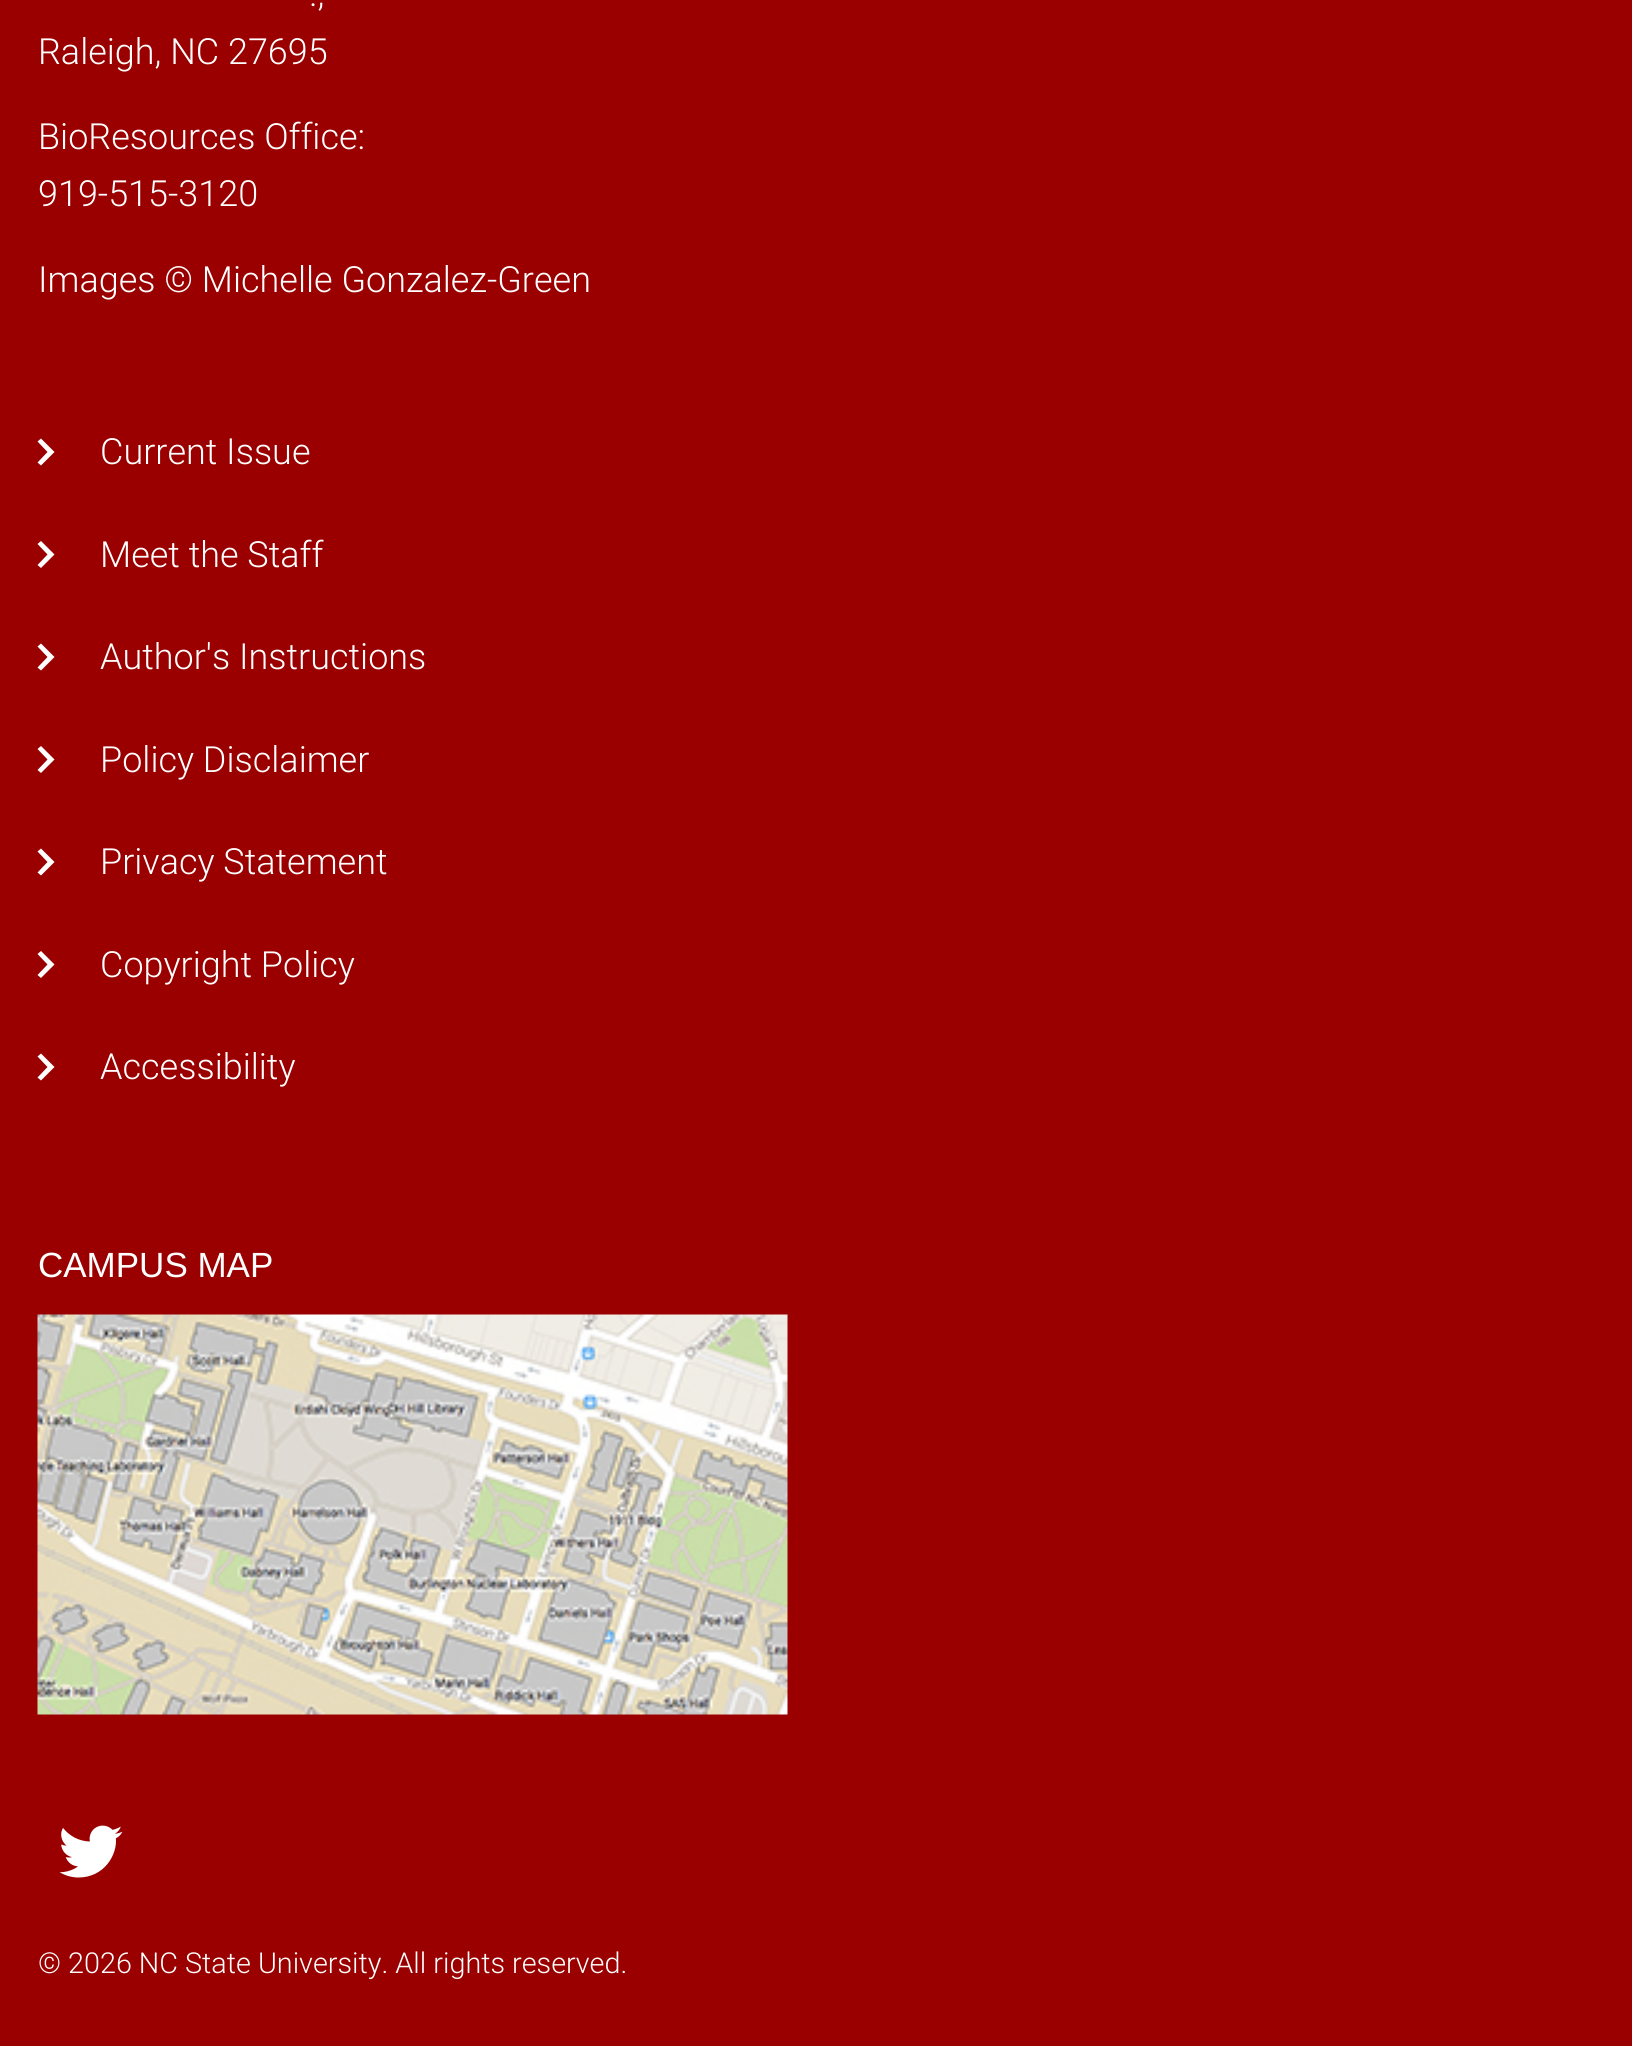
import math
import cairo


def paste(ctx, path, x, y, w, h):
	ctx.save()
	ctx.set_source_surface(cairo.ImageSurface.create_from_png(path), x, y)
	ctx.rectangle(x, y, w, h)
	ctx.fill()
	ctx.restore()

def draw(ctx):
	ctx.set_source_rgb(0.604, 0, 0)
	ctx.paint()
	ctx.select_font_face('Roboto Light')
	ctx.set_font_size(36)
	ctx.set_source_rgb(1, 1, 1)
	for x, y, s in [
		(309, 6, '.,'),
		(38, 64, 'Raleigh, NC 27695'),
		(38, 149, 'BioResources Office:'),
		(38, 206, '919-515-3120'),
		(38, 292, 'Images © Michelle Gonzalez-Green'),
	]:
		ctx.move_to(x, y)
		ctx.show_text(s)
	ctx.new_path()
	ctx.move_to(51, 448.5)
	ctx.line_to(54.5, 452)
	ctx.line_to(41, 465.5)
	ctx.line_to(37.5, 462.5)
	ctx.line_to(47.5, 452)
	ctx.line_to(37.5, 441.5)
	ctx.line_to(41, 438.5)
	ctx.close_path()
	ctx.fill()
	ctx.move_to(100, 464)
	ctx.show_text('Current Issue')
	ctx.new_path()
	ctx.move_to(51, 551)
	ctx.line_to(54.5, 554.5)
	ctx.line_to(41, 568)
	ctx.line_to(37.5, 565)
	ctx.line_to(47.5, 554.5)
	ctx.line_to(37.5, 544)
	ctx.line_to(41, 541)
	ctx.close_path()
	ctx.fill()
	ctx.move_to(100, 567)
	ctx.show_text('Meet the Staff')
	ctx.new_path()
	ctx.move_to(51, 653.5)
	ctx.line_to(54.5, 657)
	ctx.line_to(41, 670.5)
	ctx.line_to(37.5, 667.5)
	ctx.line_to(47.5, 657)
	ctx.line_to(37.5, 646.5)
	ctx.line_to(41, 643.5)
	ctx.close_path()
	ctx.fill()
	ctx.move_to(100, 669)
	ctx.show_text('Author\'s Instructions')
	ctx.new_path()
	ctx.move_to(51, 756)
	ctx.line_to(54.5, 759.5)
	ctx.line_to(41, 773)
	ctx.line_to(37.5, 770)
	ctx.line_to(47.5, 759.5)
	ctx.line_to(37.5, 749)
	ctx.line_to(41, 746)
	ctx.close_path()
	ctx.fill()
	ctx.move_to(100, 772)
	ctx.show_text('Policy Disclaimer')
	ctx.new_path()
	ctx.move_to(51, 858.5)
	ctx.line_to(54.5, 862)
	ctx.line_to(41, 875.5)
	ctx.line_to(37.5, 872.5)
	ctx.line_to(47.5, 862)
	ctx.line_to(37.5, 851.5)
	ctx.line_to(41, 848.5)
	ctx.close_path()
	ctx.fill()
	ctx.move_to(100, 874)
	ctx.show_text('Privacy Statement')
	ctx.new_path()
	ctx.move_to(51, 961)
	ctx.line_to(54.5, 964.5)
	ctx.line_to(41, 978)
	ctx.line_to(37.5, 975)
	ctx.line_to(47.5, 964.5)
	ctx.line_to(37.5, 954)
	ctx.line_to(41, 951)
	ctx.close_path()
	ctx.fill()
	ctx.move_to(100, 977)
	ctx.show_text('Copyright Policy')
	ctx.new_path()
	ctx.move_to(51, 1063.5)
	ctx.line_to(54.5, 1067)
	ctx.line_to(41, 1080.5)
	ctx.line_to(37.5, 1077.5)
	ctx.line_to(47.5, 1067)
	ctx.line_to(37.5, 1056.5)
	ctx.line_to(41, 1053.5)
	ctx.close_path()
	ctx.fill()
	ctx.move_to(100, 1079)
	ctx.show_text('Accessibility')
	ctx.select_font_face('Liberation Sans')
	ctx.set_font_size(35)
	ctx.move_to(38, 1277)
	ctx.show_text('CAMPUS MAP')
	paste(ctx, 'media/1.png', 37, 1314, 751, 401)
	paste(ctx, 'media/2.png', 59, 1825, 64, 53)
	ctx.select_font_face('Roboto Light')
	ctx.set_font_size(28.8)
	ctx.move_to(38, 1973)
	ctx.show_text('© 2026 NC State University. All rights reserved.')


surface = cairo.ImageSurface(cairo.FORMAT_RGB24, 1632, 2046)
ctx = cairo.Context(surface)
options = cairo.FontOptions()
options.set_hint_metrics(cairo.HINT_METRICS_OFF)
options.set_hint_style(cairo.HINT_STYLE_NONE)
ctx.set_font_options(options)
ctx.set_miter_limit(4)
draw(ctx)
surface.write_to_png('image.png')
